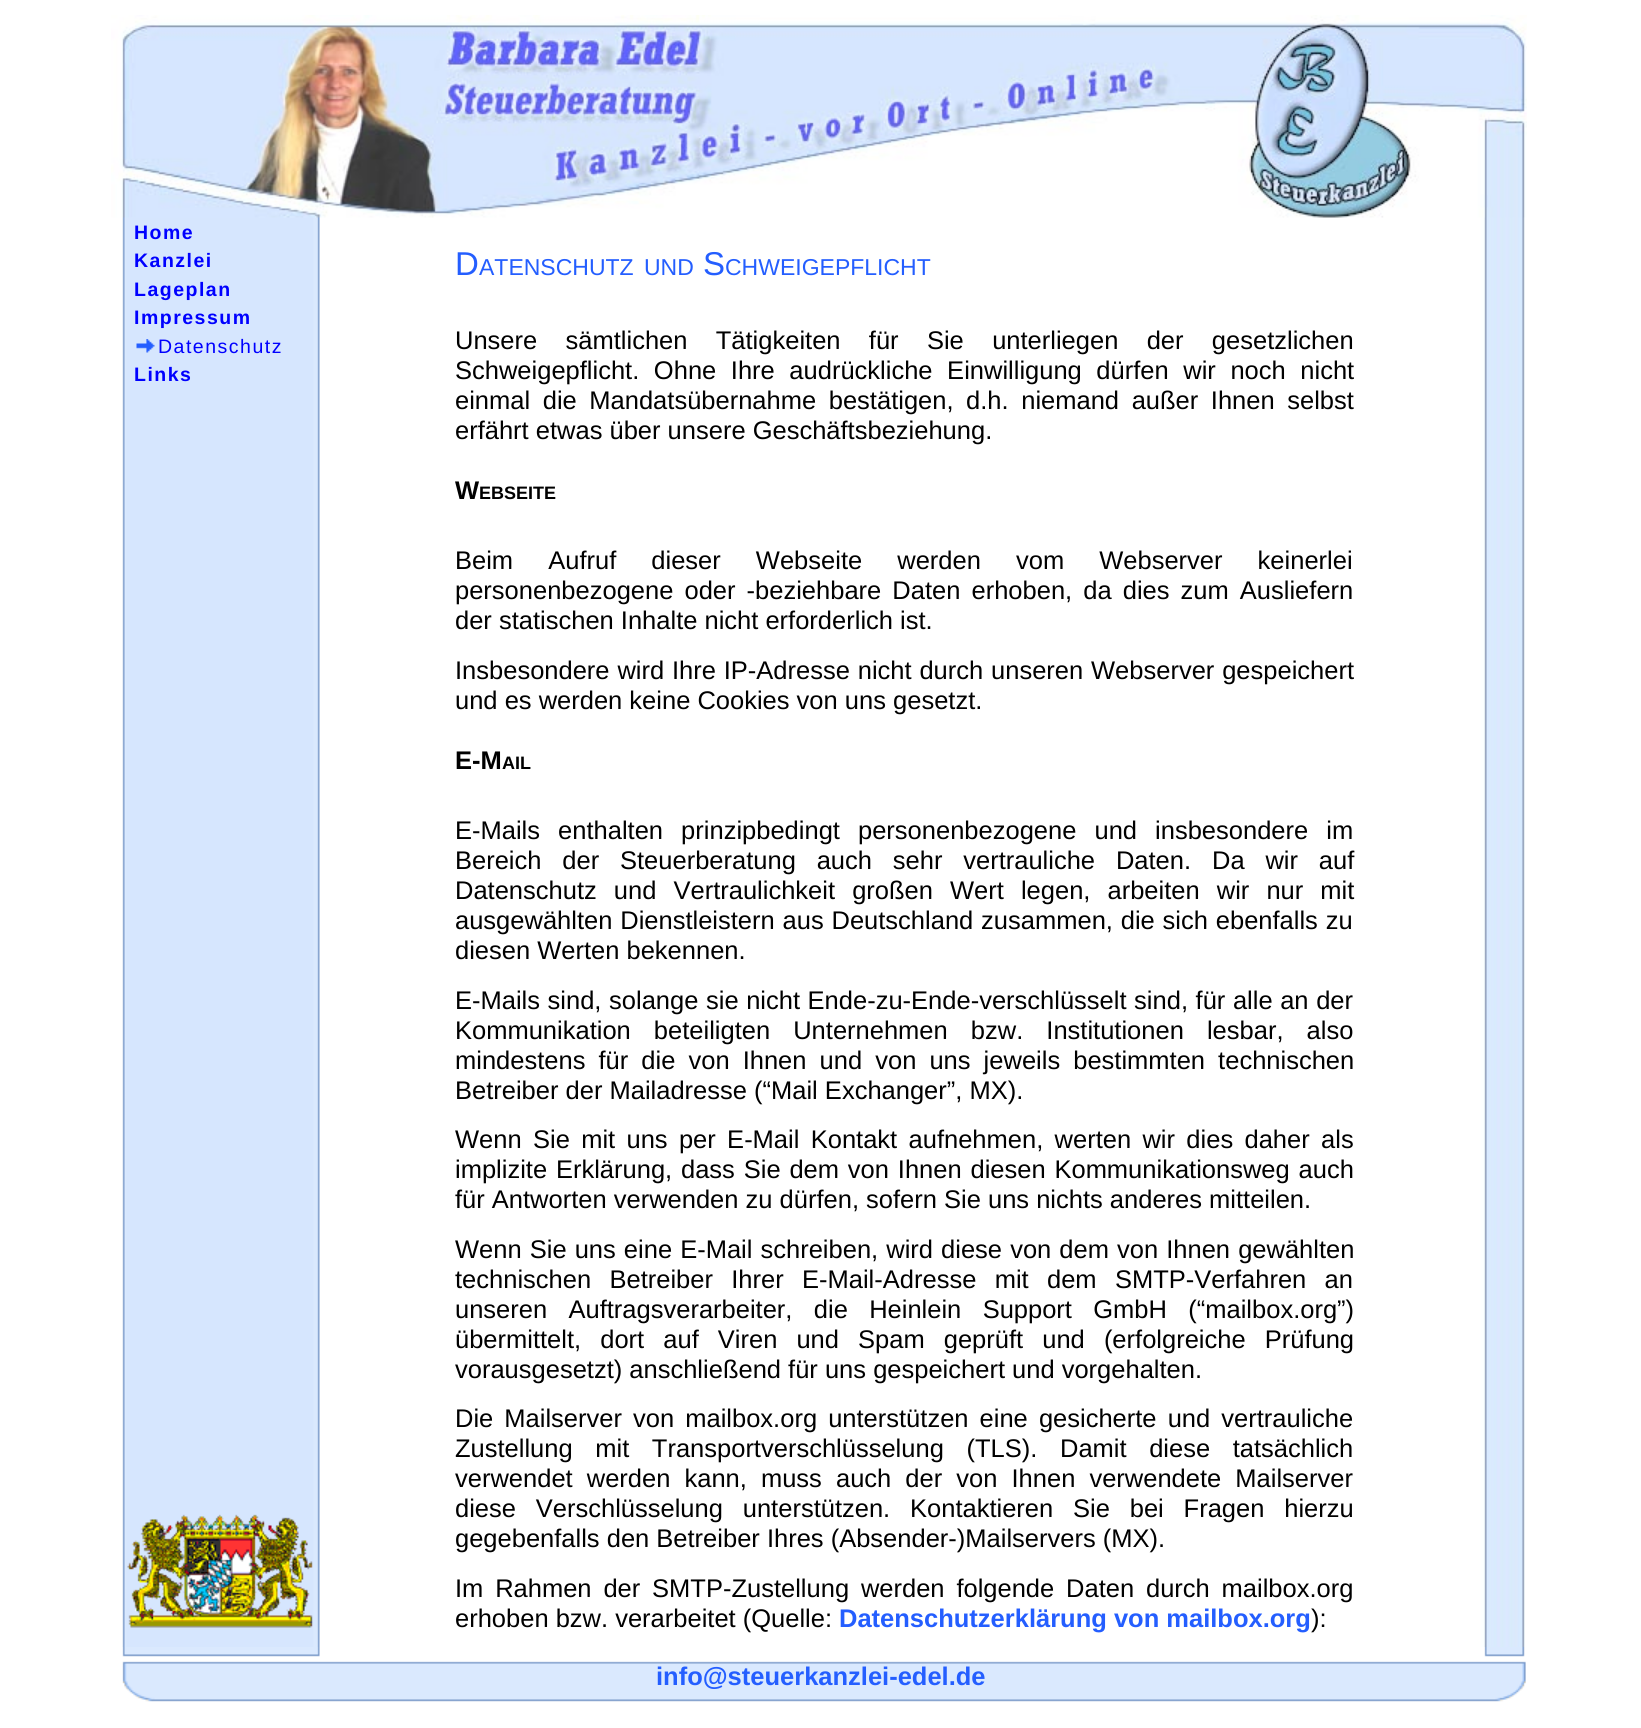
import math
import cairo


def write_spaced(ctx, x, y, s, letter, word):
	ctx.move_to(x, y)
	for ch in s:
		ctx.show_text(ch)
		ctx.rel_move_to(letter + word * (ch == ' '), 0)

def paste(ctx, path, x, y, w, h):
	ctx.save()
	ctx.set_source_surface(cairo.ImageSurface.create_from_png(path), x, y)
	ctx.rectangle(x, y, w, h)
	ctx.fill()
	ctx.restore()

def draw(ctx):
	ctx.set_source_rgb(1, 1, 1)
	ctx.paint()
	paste(ctx, 'media/1.png', 122, 217, 1403, 1430)
	paste(ctx, 'media/2.png', 111, 15, 1416, 203)
	ctx.select_font_face('Liberation Sans', cairo.FONT_SLANT_NORMAL, cairo.FONT_WEIGHT_BOLD)
	ctx.set_font_size(19.5)
	ctx.set_source_rgb(0, 0, 1)
	for x, y, s in [
		(134, 239, 'Home'),
		(134, 267, 'Kanzlei'),
		(134, 296, 'Lageplan'),
		(134, 324, 'Impressum'),
	]:
		write_spaced(ctx, x, y, s, 1.5, 0)
	paste(ctx, 'media/3.png', 136, 339, 19, 14)
	ctx.select_font_face('Liberation Sans')
	write_spaced(ctx, 158, 353, 'Datenschutz', 1.5, 0)
	ctx.select_font_face('Liberation Sans', cairo.FONT_SLANT_NORMAL, cairo.FONT_WEIGHT_BOLD)
	write_spaced(ctx, 134, 381, 'Links', 1.5, 0)
	ctx.select_font_face('Liberation Sans')
	ctx.set_font_size(33)
	ctx.set_source_rgb(0.141, 0.369, 1)
	ctx.move_to(455, 275)
	ctx.show_text('D')
	ctx.set_font_size(23)
	ctx.move_to(479, 275)
	ctx.show_text('ATENSCHUTZ')
	ctx.move_to(644, 275)
	ctx.show_text('UND')
	ctx.set_font_size(33)
	ctx.move_to(703, 275)
	ctx.show_text('S')
	ctx.set_font_size(23)
	ctx.move_to(725, 275)
	ctx.show_text('CHWEIGEPFLICHT')
	ctx.set_font_size(25.5)
	ctx.set_source_rgb(0, 0, 0)
	write_spaced(ctx, 455, 349, 'Unsere sämtlichen Tätigkeiten für Sie unterliegen der gesetzlichen', 0, 21.25)
	write_spaced(ctx, 455, 379, 'Schweigepflicht. Ohne Ihre audrückliche Einwilligung dürfen wir noch nicht', 0, 7.5)
	write_spaced(ctx, 455, 409, 'einmal die Mandatsübernahme bestätigen, d.h. niemand außer Ihnen selbst', 0, 5.5)
	ctx.move_to(455, 439)
	ctx.show_text('erfährt etwas über unsere Geschäftsbeziehung.')
	ctx.select_font_face('Liberation Sans', cairo.FONT_SLANT_NORMAL, cairo.FONT_WEIGHT_BOLD)
	ctx.move_to(455, 499)
	ctx.show_text('W')
	ctx.set_font_size(18)
	ctx.move_to(479, 499)
	ctx.show_text('EBSEITE')
	ctx.select_font_face('Liberation Sans')
	ctx.set_font_size(25.5)
	write_spaced(ctx, 455, 569, 'Beim Aufruf dieser Webseite werden vom Webserver keinerlei', 0, 28)
	write_spaced(ctx, 455, 599, 'personenbezogene oder -beziehbare Daten erhoben, da dies zum Ausliefern', 0, 4)
	ctx.move_to(455, 629)
	ctx.show_text('der statischen Inhalte nicht erforderlich ist.')
	write_spaced(ctx, 455, 679, 'Insbesondere wird Ihre IP-Adresse nicht durch unseren Webserver gespeichert', 0, 0.75)
	ctx.move_to(455, 709)
	ctx.show_text('und es werden keine Cookies von uns gesetzt.')
	ctx.select_font_face('Liberation Sans', cairo.FONT_SLANT_NORMAL, cairo.FONT_WEIGHT_BOLD)
	ctx.move_to(455, 769)
	ctx.show_text('E-M')
	ctx.set_font_size(18)
	ctx.move_to(502, 769)
	ctx.show_text('AIL')
	ctx.select_font_face('Liberation Sans')
	ctx.set_font_size(25.5)
	write_spaced(ctx, 455, 839, 'E-Mails enthalten prinzipbedingt personenbezogene und insbesondere im', 0, 11)
	write_spaced(ctx, 455, 869, 'Bereich der Steuerberatung auch sehr vertrauliche Daten.', 0, 13.75)
	write_spaced(ctx, 1212, 869, 'Da wir auf', 0, 13.75)
	write_spaced(ctx, 455, 899, 'Datenschutz und Vertraulichkeit großen Wert legen, arbeiten wir nur mit', 0, 10)
	write_spaced(ctx, 455, 929, 'ausgewählten Dienstleistern aus Deutschland zusammen, die sich ebenfalls zu', 0, 0.75)
	ctx.move_to(455, 959)
	ctx.show_text('diesen Werten bekennen.')
	write_spaced(ctx, 455, 1009, 'E-Mails sind, solange sie nicht Ende-zu-Ende-verschlüsselt sind, für alle an der', 0, 0.5)
	write_spaced(ctx, 455, 1039, 'Kommunikation beteiligten Unternehmen bzw. Institutionen lesbar, also', 0, 16)
	write_spaced(ctx, 455, 1069, 'mindestens für die von Ihnen und von uns jeweils bestimmten technischen', 0, 6)
	ctx.move_to(455, 1099)
	ctx.show_text('Betreiber der Mailadresse (“Mail Exchanger”, MX).')
	write_spaced(ctx, 455, 1148, 'Wenn Sie mit uns per E-Mail Kontakt aufnehmen, werten wir dies daher als', 0, 4.25)
	write_spaced(ctx, 455, 1178, 'implizite Erklärung, dass Sie dem von Ihnen diesen Kommunikationsweg auch', 0, 1.75)
	ctx.move_to(455, 1208)
	ctx.show_text('für Antworten verwenden zu dürfen, sofern Sie uns nichts anderes mitteilen.')
	write_spaced(ctx, 455, 1258, 'Wenn Sie uns eine E-Mail schreiben, wird diese von dem von Ihnen gewählten', 0, 1)
	write_spaced(ctx, 455, 1288, 'technischen Betreiber Ihrer E-Mail-Adresse mit dem SMTP-Verfahren an', 0, 11.25)
	write_spaced(ctx, 455, 1318, 'unseren Auftragsverarbeiter, die Heinlein Support GmbH (“mailbox.org”)', 0, 14.25)
	write_spaced(ctx, 455, 1348, 'übermittelt, dort auf Viren und Spam geprüft und (erfolgreiche Prüfung', 0, 12)
	ctx.move_to(455, 1378)
	ctx.show_text('vorausgesetzt) anschließend für uns gespeichert und vorgehalten.')
	write_spaced(ctx, 455, 1427, 'Die Mailserver von mailbox.org unterstützen eine gesicherte und vertrauliche', 0, 4)
	write_spaced(ctx, 455, 1457, 'Zustellung mit Transportverschlüsselung (TLS).', 0, 15.5)
	write_spaced(ctx, 1060, 1457, 'Damit diese tatsächlich', 0, 15.5)
	write_spaced(ctx, 455, 1487, 'verwendet werden kann, muss auch der von Ihnen verwendete Mailserver', 0, 7)
	write_spaced(ctx, 455, 1517, 'diese Verschlüsselung unterstützen. Kontaktieren Sie bei Fragen hierzu', 0, 12.75)
	ctx.move_to(455, 1547)
	ctx.show_text('gegebenfalls den Betreiber Ihres (Absender-)Mailservers (MX).')
	write_spaced(ctx, 455, 1597, 'Im Rahmen der SMTP-Zustellung werden folgende Daten durch mailbox.org', 0, 4.75)
	ctx.move_to(455, 1627)
	ctx.show_text('erhoben bzw. verarbeitet (Quelle:')
	ctx.select_font_face('Liberation Sans', cairo.FONT_SLANT_NORMAL, cairo.FONT_WEIGHT_BOLD)
	ctx.set_source_rgb(0.141, 0.369, 1)
	ctx.move_to(839, 1627)
	ctx.show_text('Datenschutzerklärung von mailbox.org')
	ctx.select_font_face('Liberation Sans')
	ctx.set_source_rgb(0, 0, 0)
	ctx.move_to(1311, 1627)
	ctx.show_text('):')
	paste(ctx, 'media/4.png', 127, 1514, 186, 114)
	paste(ctx, 'media/5.png', 122, 1647, 1404, 66)
	ctx.select_font_face('Liberation Sans', cairo.FONT_SLANT_NORMAL, cairo.FONT_WEIGHT_BOLD)
	ctx.set_source_rgb(0.141, 0.369, 1)
	ctx.move_to(656, 1685)
	ctx.show_text('info@steuerkanzlei-edel.de')


surface = cairo.ImageSurface(cairo.FORMAT_RGB24, 1641, 1728)
ctx = cairo.Context(surface)
options = cairo.FontOptions()
options.set_hint_metrics(cairo.HINT_METRICS_OFF)
options.set_hint_style(cairo.HINT_STYLE_NONE)
ctx.set_font_options(options)
ctx.set_miter_limit(4)
draw(ctx)
surface.write_to_png('image.png')
